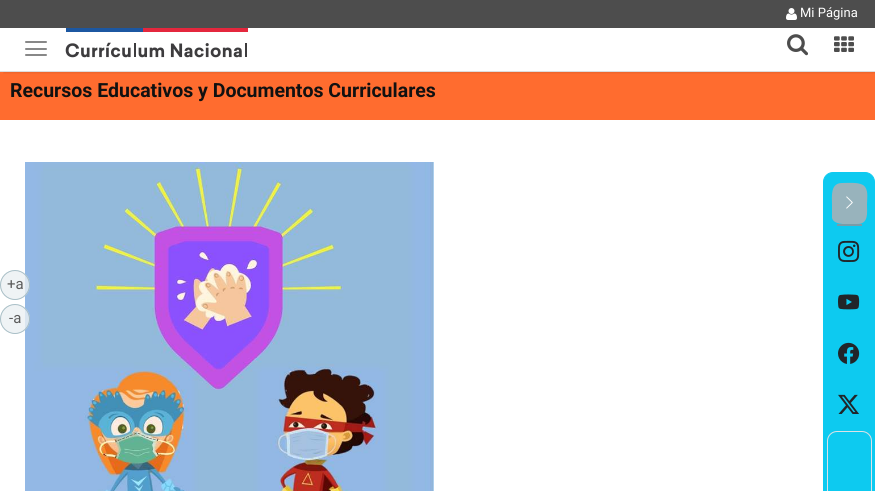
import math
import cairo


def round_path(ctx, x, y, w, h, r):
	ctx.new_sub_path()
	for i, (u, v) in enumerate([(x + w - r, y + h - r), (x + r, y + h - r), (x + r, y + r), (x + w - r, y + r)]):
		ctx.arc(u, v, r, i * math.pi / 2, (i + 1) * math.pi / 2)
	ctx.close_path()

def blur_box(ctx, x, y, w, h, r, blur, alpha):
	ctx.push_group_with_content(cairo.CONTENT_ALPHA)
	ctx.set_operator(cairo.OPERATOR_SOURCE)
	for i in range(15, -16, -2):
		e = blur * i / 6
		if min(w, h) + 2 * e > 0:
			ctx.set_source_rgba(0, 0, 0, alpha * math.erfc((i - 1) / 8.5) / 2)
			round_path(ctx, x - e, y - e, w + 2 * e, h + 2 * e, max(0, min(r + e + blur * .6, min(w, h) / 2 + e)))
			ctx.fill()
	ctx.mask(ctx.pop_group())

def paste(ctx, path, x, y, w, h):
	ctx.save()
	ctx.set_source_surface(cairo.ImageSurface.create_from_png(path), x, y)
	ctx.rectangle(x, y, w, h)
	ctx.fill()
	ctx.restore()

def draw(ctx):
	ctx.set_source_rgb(1, 1, 1)
	ctx.paint()
	ctx.set_source_rgb(1, 0.424, 0.184)
	ctx.rectangle(0, 72, 875, 48)
	ctx.fill()
	ctx.save()
	ctx.rectangle(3, 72, 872, 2)
	ctx.clip()
	ctx.set_source_rgb(0, 0, 0)
	blur_box(ctx, 4, 22, 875, 50, 0, 2, 0.15)
	ctx.restore()
	ctx.set_source_rgb(0.867, 0.867, 0.867)
	ctx.rectangle(0, 71, 875, 1)
	ctx.fill()
	ctx.set_source_rgb(0.302, 0.302, 0.302)
	ctx.rectangle(0, 0, 875, 28)
	ctx.fill()
	paste(ctx, 'media/1.png', 786, 8, 11, 12)
	ctx.select_font_face('Roboto')
	ctx.set_font_size(13)
	ctx.set_source_rgb(1, 1, 1)
	ctx.move_to(800, 17)
	ctx.show_text('Mi Página')
	ctx.set_source_rgb(0.533, 0.533, 0.533)
	round_path(ctx, 25, 41, 22, 2, 1)
	ctx.fill()
	round_path(ctx, 25, 48, 22, 2, 1)
	ctx.fill()
	round_path(ctx, 25, 54, 22, 2, 1)
	ctx.fill()
	paste(ctx, 'media/2.png', 65, 28, 183, 30)
	paste(ctx, 'media/3.png', 787, 34, 21, 22)
	paste(ctx, 'media/4.png', 834, 36, 20, 16)
	ctx.select_font_face('Roboto', cairo.FONT_SLANT_NORMAL, cairo.FONT_WEIGHT_BOLD)
	ctx.set_font_size(19.5)
	ctx.set_source_rgb(0.067, 0.067, 0.067)
	ctx.move_to(10, 97)
	ctx.show_text('Recursos Educativos y Documentos Curriculares')
	paste(ctx, 'media/5.png', 25, 162, 409, 329)
	ctx.set_source_rgba(0.922, 0.941, 0.949, 0.8)
	ctx.arc(15, 285, 15, 0, 2 * math.pi)
	ctx.fill()
	ctx.arc(15, 285, 14.5, 0, 2 * math.pi)
	ctx.set_source_rgba(0.596, 0.702, 0.737, 0.8)
	ctx.set_line_width(1)
	ctx.stroke()
	ctx.select_font_face('Roboto')
	ctx.set_font_size(15)
	ctx.set_source_rgb(0.361, 0.361, 0.361)
	ctx.move_to(7, 289)
	ctx.show_text('+a')
	ctx.set_source_rgba(0.922, 0.941, 0.949, 0.8)
	ctx.new_path()
	ctx.arc(15, 319, 15, 0, 2 * math.pi)
	ctx.fill()
	ctx.arc(15, 319, 14.5, 0, 2 * math.pi)
	ctx.set_source_rgba(0.596, 0.702, 0.737, 0.8)
	ctx.stroke()
	ctx.set_source_rgb(0.361, 0.361, 0.361)
	ctx.move_to(9, 323)
	ctx.show_text('-a')
	ctx.set_source_rgb(0.051, 0.792, 0.941)
	round_path(ctx, 823.5, 172.5, 51, 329, 9.5)
	ctx.fill_preserve()
	ctx.stroke()
	ctx.set_source_rgb(0.596, 0.702, 0.737)
	ctx.new_path()
	ctx.move_to(842, 183)
	ctx.curve_to(848, 183, 858, 182, 863, 185)
	ctx.curve_to(869, 189, 867, 198, 867, 204)
	ctx.curve_to(867, 213, 869, 224, 857, 224)
	ctx.curve_to(850, 224, 834, 226, 832, 218)
	ctx.line_to(832, 204)
	ctx.curve_to(832, 197, 830, 183, 842, 183)
	ctx.close_path()
	ctx.fill()
	ctx.set_source_rgb(0.475, 0.612, 0.659)
	ctx.rectangle(837, 224, 25, 2)
	ctx.fill()
	paste(ctx, 'media/6.png', 846, 196, 7, 13)
	paste(ctx, 'media/7.png', 838, 240, 22, 22)
	paste(ctx, 'media/8.png', 838, 294, 22, 16)
	paste(ctx, 'media/9.png', 838, 342, 22, 22)
	paste(ctx, 'media/10.png', 838, 394, 21, 20)
	round_path(ctx, 827.5, 431.5, 44, 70, 9.5)
	ctx.set_source_rgb(0.871, 0.886, 0.902)
	ctx.stroke()


surface = cairo.ImageSurface(cairo.FORMAT_RGB24, 875, 491)
ctx = cairo.Context(surface)
options = cairo.FontOptions()
options.set_hint_metrics(cairo.HINT_METRICS_OFF)
options.set_hint_style(cairo.HINT_STYLE_NONE)
ctx.set_font_options(options)
ctx.set_miter_limit(4)
draw(ctx)
surface.write_to_png('image.png')
